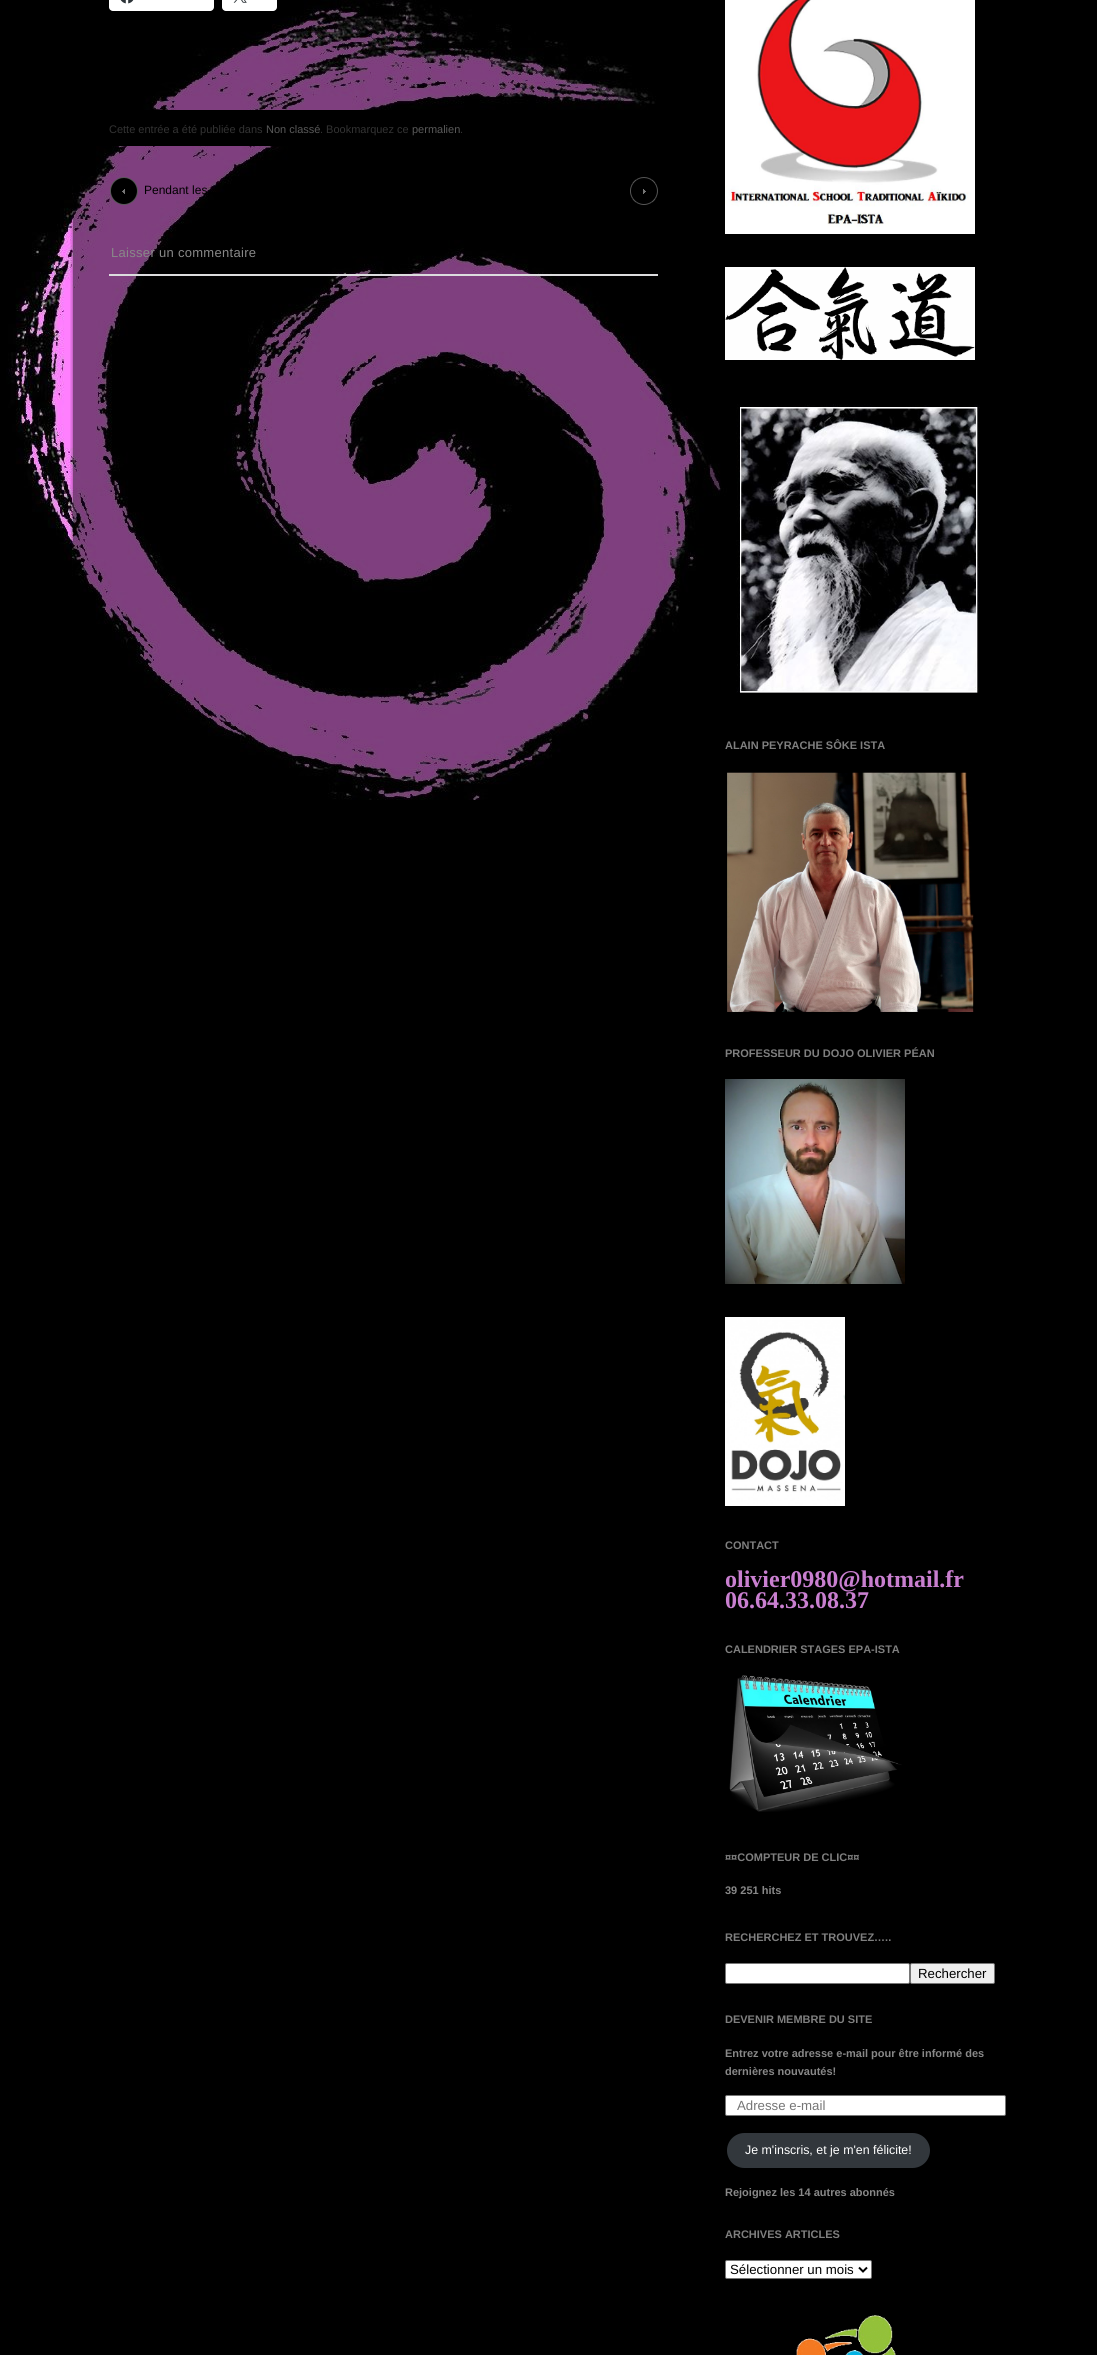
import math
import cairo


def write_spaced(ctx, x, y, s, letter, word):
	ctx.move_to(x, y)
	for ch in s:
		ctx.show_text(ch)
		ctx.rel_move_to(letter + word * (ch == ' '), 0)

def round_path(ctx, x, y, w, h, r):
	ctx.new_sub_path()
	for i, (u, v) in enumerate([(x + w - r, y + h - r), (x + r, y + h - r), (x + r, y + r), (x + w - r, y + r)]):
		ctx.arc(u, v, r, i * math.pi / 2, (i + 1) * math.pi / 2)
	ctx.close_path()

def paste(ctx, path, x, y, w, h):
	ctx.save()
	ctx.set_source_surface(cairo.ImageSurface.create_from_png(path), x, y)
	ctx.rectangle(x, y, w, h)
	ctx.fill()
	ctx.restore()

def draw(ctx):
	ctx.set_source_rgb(0, 0, 0)
	ctx.paint()
	paste(ctx, 'media/1.png', 6, 0, 722, 800)
	paste(ctx, 'media/2.png', 70, 0, 657, 800)
	ctx.set_source_rgb(1, 1, 1)
	round_path(ctx, 109, -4, 105, 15, 4)
	ctx.fill()
	paste(ctx, 'media/3.png', 120, 0, 14, 4)
	round_path(ctx, 222, -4, 55, 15, 4)
	ctx.fill()
	paste(ctx, 'media/4.png', 233, 0, 14, 3)
	ctx.set_source_rgb(0, 0, 0)
	ctx.new_path()
	ctx.move_to(74, 110)
	ctx.line_to(644, 110)
	ctx.curve_to(654, 110, 662, 118, 662, 128)
	ctx.curve_to(662, 138, 654, 146, 644, 146)
	ctx.line_to(74, 146)
	ctx.close_path()
	ctx.fill()
	ctx.select_font_face('Liberation Sans')
	ctx.set_font_size(11)
	ctx.set_source_rgb(0.2, 0.2, 0.2)
	ctx.move_to(109, 133)
	ctx.show_text('Cette entrée a été publiée dans')
	ctx.set_source_rgb(0.349, 0.349, 0.349)
	ctx.move_to(266, 133)
	ctx.show_text('Non classé')
	ctx.set_source_rgb(0.2, 0.2, 0.2)
	ctx.move_to(320, 133)
	ctx.show_text('. Bookmarquez ce')
	ctx.set_source_rgb(0.349, 0.349, 0.349)
	ctx.move_to(412, 133)
	ctx.show_text('permalien')
	ctx.set_source_rgb(0.2, 0.2, 0.2)
	ctx.move_to(460, 133)
	ctx.show_text('.')
	paste(ctx, 'media/5.png', 110, 177, 28, 28)
	ctx.set_font_size(12)
	ctx.set_source_rgb(0, 0, 0)
	ctx.move_to(144, 194)
	ctx.show_text('Pendant les')
	paste(ctx, 'media/6.png', 630, 177, 28, 28)
	ctx.set_font_size(13)
	ctx.set_source_rgb(0.533, 0.533, 0.533)
	write_spaced(ctx, 111, 257, 'Laisser un commentaire', 0.3, 0)
	ctx.set_source_rgb(0.863, 0.863, 0.871)
	ctx.rectangle(109, 274, 549, 2)
	ctx.fill()
	paste(ctx, 'media/7.png', 725, 0, 250, 234)
	paste(ctx, 'media/8.png', 725, 267, 250, 93)
	paste(ctx, 'media/9.png', 727, 404, 253, 289)
	ctx.select_font_face('Liberation Sans', cairo.FONT_SLANT_NORMAL, cairo.FONT_WEIGHT_BOLD)
	ctx.set_font_size(11)
	ctx.set_source_rgb(0.498, 0.498, 0.498)
	ctx.move_to(725, 749)
	ctx.show_text('ALAIN PEYRACHE SÔKE ISTA')
	paste(ctx, 'media/10.png', 727, 772, 247, 240)
	ctx.move_to(725, 1057)
	ctx.show_text('PROFESSEUR DU DOJO OLIVIER PÉAN')
	paste(ctx, 'media/11.png', 725, 1079, 180, 205)
	paste(ctx, 'media/12.png', 725, 1317, 120, 189)
	ctx.move_to(725, 1549)
	ctx.show_text('CONTACT')
	ctx.select_font_face('Liberation Serif', cairo.FONT_SLANT_NORMAL, cairo.FONT_WEIGHT_BOLD)
	ctx.set_font_size(24)
	ctx.set_source_rgb(0.788, 0.498, 0.816)
	ctx.move_to(725, 1587)
	ctx.show_text('olivier0980@hotmail.fr')
	ctx.move_to(725, 1608)
	ctx.show_text('06.64.33.08.37')
	ctx.select_font_face('Liberation Sans', cairo.FONT_SLANT_NORMAL, cairo.FONT_WEIGHT_BOLD)
	ctx.set_font_size(11)
	ctx.set_source_rgb(0.498, 0.498, 0.498)
	ctx.move_to(725, 1653)
	ctx.show_text('CALENDRIER STAGES EPA-ISTA')
	paste(ctx, 'media/13.png', 729, 1675, 173, 137)
	ctx.move_to(725, 1861)
	ctx.show_text('¤¤COMPTEUR DE CLIC¤¤')
	ctx.set_source_rgb(0.533, 0.533, 0.533)
	ctx.move_to(725, 1894)
	ctx.show_text('39 251 hits')
	ctx.set_source_rgb(0.498, 0.498, 0.498)
	ctx.move_to(725, 1941)
	ctx.show_text('RECHERCHEZ ET TROUVEZ…..')
	ctx.set_source_rgb(1, 1, 1)
	round_path(ctx, 725.5, 1963.5, 184, 20, 1.5)
	ctx.fill_preserve()
	ctx.set_source_rgb(0.463, 0.463, 0.463)
	ctx.set_line_width(1)
	ctx.stroke()
	ctx.set_source_rgb(0.937, 0.937, 0.937)
	round_path(ctx, 910.5, 1963.5, 84, 20, 1.5)
	ctx.fill_preserve()
	ctx.set_source_rgb(0.463, 0.463, 0.463)
	ctx.stroke()
	ctx.select_font_face('Liberation Sans')
	ctx.set_font_size(13.25)
	ctx.set_source_rgb(0, 0, 0)
	ctx.move_to(918, 1978)
	ctx.show_text('Rechercher')
	ctx.select_font_face('Liberation Sans', cairo.FONT_SLANT_NORMAL, cairo.FONT_WEIGHT_BOLD)
	ctx.set_font_size(11)
	ctx.set_source_rgb(0.498, 0.498, 0.498)
	ctx.move_to(725, 2023)
	ctx.show_text('DEVENIR MEMBRE DU SITE')
	ctx.set_source_rgb(0.533, 0.533, 0.533)
	ctx.move_to(725, 2057)
	ctx.show_text('Entrez votre adresse e-mail pour être informé des')
	ctx.move_to(725, 2075)
	ctx.show_text('dernières nouvautés!')
	ctx.set_source_rgb(1, 1, 1)
	round_path(ctx, 725.5, 2095.5, 280, 20, 1.5)
	ctx.fill_preserve()
	ctx.set_source_rgb(0.463, 0.463, 0.463)
	ctx.stroke()
	ctx.select_font_face('Liberation Sans')
	ctx.set_font_size(13.25)
	ctx.set_source_rgb(0.459, 0.459, 0.459)
	ctx.move_to(737, 2110)
	ctx.show_text('Adresse e-mail')
	ctx.set_source_rgb(0.196, 0.216, 0.235)
	round_path(ctx, 726, 2132, 205, 37, 18.5)
	ctx.fill_preserve()
	ctx.set_source_rgb(0, 0, 0)
	ctx.set_line_width(2)
	ctx.stroke()
	ctx.set_font_size(12.4)
	ctx.set_source_rgb(1, 1, 1)
	ctx.move_to(745, 2154)
	ctx.show_text('Je m\'inscris, et je m\'en félicite!')
	ctx.select_font_face('Liberation Sans', cairo.FONT_SLANT_NORMAL, cairo.FONT_WEIGHT_BOLD)
	ctx.set_font_size(11)
	ctx.set_source_rgb(0.533, 0.533, 0.533)
	ctx.move_to(725, 2196)
	ctx.show_text('Rejoignez les 14 autres abonnés')
	ctx.set_source_rgb(0.498, 0.498, 0.498)
	ctx.move_to(725, 2238)
	ctx.show_text('ARCHIVES ARTICLES')
	ctx.set_source_rgb(1, 1, 1)
	round_path(ctx, 725.5, 2260.5, 146, 18, 1.5)
	ctx.fill_preserve()
	ctx.set_source_rgb(0.463, 0.463, 0.463)
	ctx.set_line_width(1)
	ctx.stroke()
	ctx.new_path()
	ctx.move_to(859, 2267.5)
	ctx.line_to(863, 2271.5)
	ctx.line_to(867, 2267.5)
	ctx.set_source_rgb(0, 0, 0)
	ctx.set_line_width(2)
	ctx.stroke()
	ctx.select_font_face('Liberation Sans')
	ctx.set_font_size(13.25)
	ctx.move_to(730, 2274)
	ctx.show_text('Sélectionner un mois')
	paste(ctx, 'media/14.png', 796, 2315, 100, 40)


surface = cairo.ImageSurface(cairo.FORMAT_RGB24, 1097, 2355)
ctx = cairo.Context(surface)
options = cairo.FontOptions()
options.set_hint_metrics(cairo.HINT_METRICS_OFF)
options.set_hint_style(cairo.HINT_STYLE_NONE)
ctx.set_font_options(options)
ctx.set_miter_limit(4)
draw(ctx)
surface.write_to_png('image.png')
